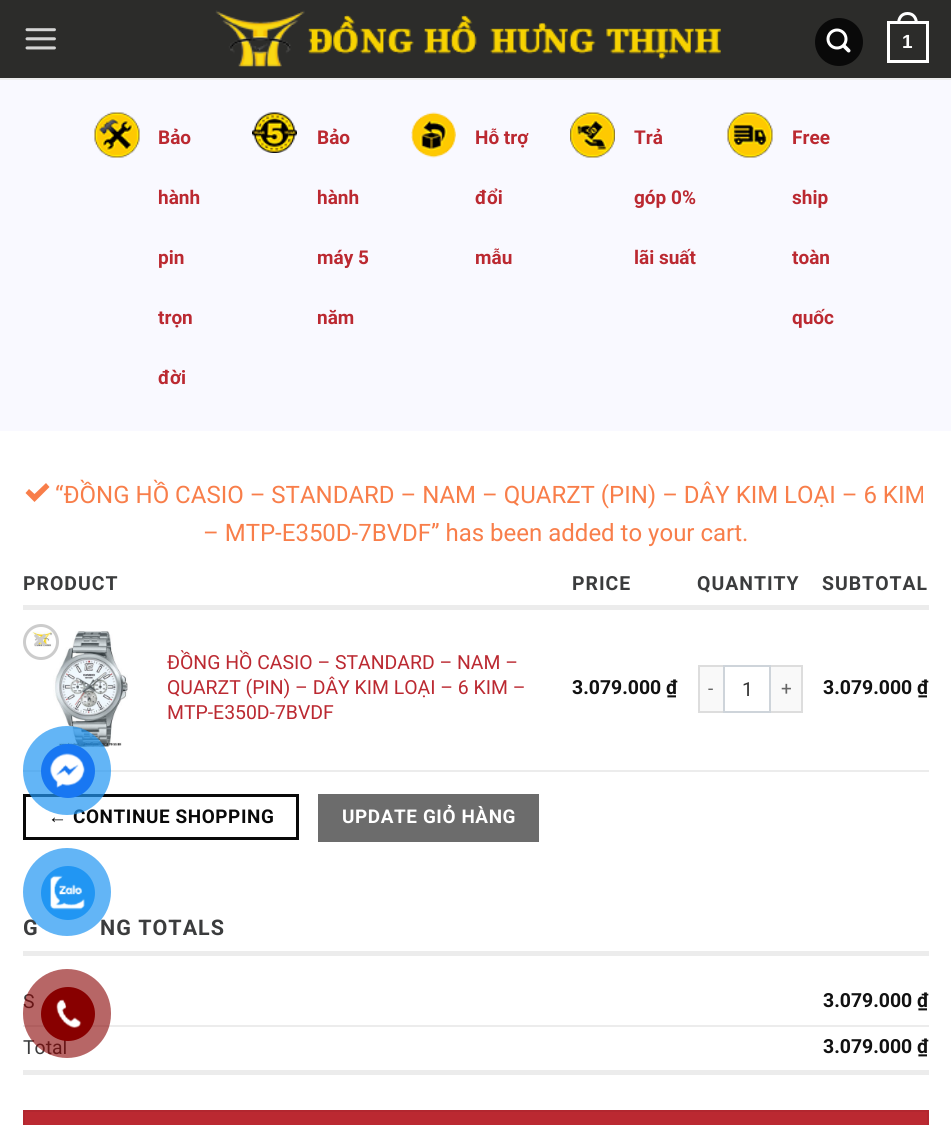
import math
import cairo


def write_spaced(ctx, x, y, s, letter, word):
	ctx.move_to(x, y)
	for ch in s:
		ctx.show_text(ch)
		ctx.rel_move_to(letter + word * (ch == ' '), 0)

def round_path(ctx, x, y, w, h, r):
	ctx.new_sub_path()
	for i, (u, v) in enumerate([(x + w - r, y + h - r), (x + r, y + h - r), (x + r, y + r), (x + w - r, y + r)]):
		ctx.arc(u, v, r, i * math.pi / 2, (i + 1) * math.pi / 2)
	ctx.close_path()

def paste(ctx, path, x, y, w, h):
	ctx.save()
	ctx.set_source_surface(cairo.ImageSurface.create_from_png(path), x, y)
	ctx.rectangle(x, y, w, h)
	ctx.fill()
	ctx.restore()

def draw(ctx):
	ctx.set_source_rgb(1, 1, 1)
	ctx.paint()
	ctx.set_source_rgb(0.173, 0.173, 0.165)
	ctx.rectangle(0, 0, 951, 78)
	ctx.fill()
	paste(ctx, 'media/1.png', 25, 28, 31, 22)
	paste(ctx, 'media/2.png', 215, 10, 506, 57)
	ctx.set_source_rgb(0.039, 0.039, 0.039)
	ctx.arc(839, 42, 24, 0, 2 * math.pi)
	ctx.fill()
	paste(ctx, 'media/3.png', 826, 28, 25, 25)
	ctx.rectangle(888.5, 22.5, 39, 39)
	ctx.set_source_rgb(1, 1, 1)
	ctx.set_line_width(3)
	ctx.stroke()
	ctx.set_fill_rule(cairo.FILL_RULE_EVEN_ODD)
	ctx.new_path()
	ctx.move_to(907.5, 12)
	ctx.curve_to(914.5, 12, 918, 17.5, 918, 24)
	ctx.line_to(897, 24)
	ctx.curve_to(897, 17.5, 900.5, 12, 907.5, 12)
	ctx.close_path()
	ctx.move_to(907.5, 15)
	ctx.curve_to(913, 15, 915, 19.5, 915, 24)
	ctx.line_to(900, 24)
	ctx.curve_to(900, 19.5, 902, 15, 907.5, 15)
	ctx.close_path()
	ctx.fill()
	ctx.select_font_face('Liberation Sans', cairo.FONT_SLANT_NORMAL, cairo.FONT_WEIGHT_BOLD)
	ctx.set_font_size(19)
	ctx.move_to(902, 48)
	ctx.show_text('1')
	ctx.set_source_rgb(0.973, 0.973, 1)
	ctx.rectangle(0, 80, 951, 351)
	ctx.fill()
	ctx.set_source_rgb(0.922, 0.922, 0.922)
	ctx.rectangle(0, 78, 951, 2)
	ctx.fill()
	paste(ctx, 'media/4.png', 94, 112, 46, 46)
	ctx.select_font_face('Roboto', cairo.FONT_SLANT_NORMAL, cairo.FONT_WEIGHT_BOLD)
	ctx.set_source_rgb(0.733, 0.161, 0.192)
	for x, y, s in [
		(158, 144, 'Bảo'),
		(158, 204, 'hành'),
		(158, 264, 'pin'),
		(158, 324, 'trọn'),
		(158, 384, 'đời'),
	]:
		ctx.move_to(x, y)
		ctx.show_text(s)
	paste(ctx, 'media/5.png', 252, 112, 45, 41)
	for x, y, s in [
		(317, 144, 'Bảo'),
		(317, 204, 'hành'),
		(317, 264, 'máy 5'),
		(317, 324, 'năm'),
	]:
		ctx.move_to(x, y)
		ctx.show_text(s)
	paste(ctx, 'media/6.png', 411, 112, 45, 46)
	for x, y, s in [
		(475, 144, 'Hỗ trợ'),
		(475, 204, 'đổi'),
		(475, 264, 'mẫu'),
	]:
		ctx.move_to(x, y)
		ctx.show_text(s)
	paste(ctx, 'media/7.png', 570, 112, 45, 46)
	for x, y, s in [
		(634, 144, 'Trả'),
		(634, 204, 'góp 0%'),
		(634, 264, 'lãi suất'),
	]:
		ctx.move_to(x, y)
		ctx.show_text(s)
	paste(ctx, 'media/8.png', 727, 112, 46, 46)
	for x, y, s in [
		(792, 144, 'Free'),
		(792, 204, 'ship'),
		(792, 264, 'toàn'),
		(792, 324, 'quốc'),
	]:
		ctx.move_to(x, y)
		ctx.show_text(s)
	ctx.set_source_rgb(0.969, 0.494, 0.29)
	ctx.set_fill_rule(cairo.FILL_RULE_WINDING)
	ctx.new_path()
	ctx.move_to(46, 483)
	ctx.line_to(34.5, 494)
	ctx.line_to(29, 489)
	ctx.line_to(25.5, 493)
	ctx.line_to(34.5, 502)
	ctx.line_to(49.5, 487)
	ctx.close_path()
	ctx.fill()
	ctx.select_font_face('Roboto')
	ctx.set_font_size(24)
	ctx.move_to(55, 503)
	ctx.show_text('“ĐỒNG HỒ CASIO – STANDARD – NAM – QUARZT (PIN) – DÂY KIM LOẠI – 6 KIM')
	ctx.move_to(203, 541)
	ctx.show_text('– MTP-E350D-7BVDF” has been added to your cart.')
	ctx.set_source_rgb(0.925, 0.925, 0.925)
	ctx.rectangle(23, 605, 906, 5)
	ctx.fill()
	ctx.select_font_face('Roboto', cairo.FONT_SLANT_NORMAL, cairo.FONT_WEIGHT_BOLD)
	ctx.set_font_size(19.4)
	ctx.set_source_rgb(0.231, 0.235, 0.239)
	for x, y, s in [
		(23, 590, 'PRODUCT'),
		(572, 590, 'PRICE'),
		(697, 590, 'QUANTITY'),
		(822, 590, 'SUBTOTAL'),
	]:
		write_spaced(ctx, x, y, s, 1, 0)
	ctx.set_source_rgb(0.925, 0.925, 0.925)
	ctx.rectangle(23, 770, 906, 2)
	ctx.fill()
	paste(ctx, 'media/9.png', 31, 631, 97, 116)
	ctx.arc(41, 642, 16.5, 0, 2 * math.pi)
	ctx.set_source_rgb(0.8, 0.8, 0.8)
	ctx.stroke()
	ctx.set_font_size(27)
	ctx.move_to(33, 649)
	ctx.show_text('×')
	ctx.select_font_face('Roboto')
	ctx.set_font_size(19.4)
	ctx.set_source_rgb(0.733, 0.161, 0.192)
	for x, y, s in [
		(167, 669, 'ĐỒNG HỒ CASIO – STANDARD – NAM –'),
		(167, 694, 'QUARZT (PIN) – DÂY KIM LOẠI – 6 KIM –'),
		(167, 719, 'MTP-E350D-7BVDF'),
	]:
		ctx.move_to(x, y)
		ctx.show_text(s)
	ctx.select_font_face('Roboto', cairo.FONT_SLANT_NORMAL, cairo.FONT_WEIGHT_BOLD)
	ctx.set_source_rgb(0.067, 0.067, 0.067)
	ctx.move_to(572, 694)
	ctx.show_text('3.079.000 ₫')
	ctx.set_source_rgb(0.976, 0.976, 0.976)
	ctx.rectangle(700, 667, 23, 44)
	ctx.fill()
	ctx.set_source_rgb(0.867, 0.867, 0.867)
	ctx.rectangle(698, 665, 25, 2)
	ctx.rectangle(698, 711, 25, 2)
	ctx.rectangle(698, 665, 2, 48)
	ctx.fill()
	ctx.select_font_face('Roboto')
	ctx.set_font_size(18.9)
	ctx.set_source_rgb(0.4, 0.4, 0.4)
	write_spaced(ctx, 708, 695, '-', 0.6, 0)
	ctx.rectangle(724, 666, 46, 46)
	ctx.set_source_rgb(0.808, 0.831, 0.855)
	ctx.set_line_width(2)
	ctx.stroke()
	ctx.set_font_size(19.4)
	ctx.set_source_rgb(0.2, 0.2, 0.2)
	ctx.move_to(742, 696)
	ctx.show_text('1')
	ctx.set_source_rgb(0.976, 0.976, 0.976)
	ctx.rectangle(771, 667, 30, 44)
	ctx.fill()
	ctx.set_source_rgb(0.867, 0.867, 0.867)
	ctx.rectangle(771, 665, 32, 2)
	ctx.rectangle(801, 665, 2, 48)
	ctx.rectangle(771, 711, 32, 2)
	ctx.fill()
	ctx.set_font_size(18.9)
	ctx.set_source_rgb(0.4, 0.4, 0.4)
	write_spaced(ctx, 781, 695, '+', 0.6, 0)
	ctx.select_font_face('Roboto', cairo.FONT_SLANT_NORMAL, cairo.FONT_WEIGHT_BOLD)
	ctx.set_font_size(19.4)
	ctx.set_source_rgb(0.067, 0.067, 0.067)
	ctx.move_to(823, 694)
	ctx.show_text('3.079.000 ₫')
	ctx.rectangle(24.5, 795.5, 273, 43)
	ctx.set_source_rgb(0.039, 0.039, 0.039)
	ctx.set_line_width(3)
	ctx.stroke()
	ctx.select_font_face('Liberation Sans', cairo.FONT_SLANT_NORMAL, cairo.FONT_WEIGHT_BOLD)
	ctx.set_font_size(18.9)
	write_spaced(ctx, 48, 823, '←', 0.6, 0)
	ctx.select_font_face('Roboto', cairo.FONT_SLANT_NORMAL, cairo.FONT_WEIGHT_BOLD)
	write_spaced(ctx, 73, 823, 'CONTINUE SHOPPING', 0.6, 0)
	ctx.set_source_rgb(0.424, 0.424, 0.424)
	ctx.rectangle(318, 794, 221, 48)
	ctx.fill()
	ctx.set_source_rgb(1, 1, 1)
	write_spaced(ctx, 342, 823, 'UPDATE GIỎ HÀNG', 0.6, 0)
	ctx.set_source_rgb(0.925, 0.925, 0.925)
	ctx.rectangle(23, 951, 906, 5)
	ctx.fill()
	ctx.set_font_size(21.5)
	ctx.set_source_rgb(0.231, 0.235, 0.239)
	write_spaced(ctx, 23, 935, 'G', 1, 0)
	write_spaced(ctx, 100, 935, 'NG TOTALS', 1, 0)
	ctx.set_source_rgb(0.925, 0.925, 0.925)
	ctx.rectangle(23, 1025, 906, 2)
	ctx.fill()
	ctx.select_font_face('Roboto')
	ctx.set_font_size(19.4)
	ctx.set_source_rgb(0.231, 0.235, 0.239)
	ctx.move_to(23, 1008)
	ctx.show_text('S')
	ctx.select_font_face('Roboto', cairo.FONT_SLANT_NORMAL, cairo.FONT_WEIGHT_BOLD)
	ctx.set_source_rgb(0.067, 0.067, 0.067)
	ctx.move_to(823, 1007)
	ctx.show_text('3.079.000 ₫')
	ctx.set_source_rgb(0.925, 0.925, 0.925)
	ctx.rectangle(23, 1070, 906, 5)
	ctx.fill()
	ctx.select_font_face('Roboto')
	ctx.set_source_rgb(0.231, 0.235, 0.239)
	ctx.move_to(23, 1054)
	ctx.show_text('Total')
	ctx.select_font_face('Roboto', cairo.FONT_SLANT_NORMAL, cairo.FONT_WEIGHT_BOLD)
	ctx.set_source_rgb(0.067, 0.067, 0.067)
	ctx.move_to(823, 1053)
	ctx.show_text('3.079.000 ₫')
	ctx.set_source_rgb(0.733, 0.161, 0.192)
	ctx.rectangle(24, 1111, 904, 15)
	ctx.fill_preserve()
	ctx.set_source_rgb(0.698, 0.153, 0.184)
	ctx.set_line_width(2)
	ctx.stroke()
	ctx.set_source_rgba(0.129, 0.588, 0.953, 0.7)
	round_path(ctx, 23, 726, 88, 89, 44)
	ctx.fill()
	ctx.set_source_rgb(0.094, 0.467, 0.949)
	ctx.arc(68, 771, 27, 0, 2 * math.pi)
	ctx.fill()
	paste(ctx, 'media/10.png', 50, 753, 35, 35)
	ctx.set_source_rgba(0.129, 0.588, 0.953, 0.7)
	ctx.arc(67, 892, 44, 0, 2 * math.pi)
	ctx.fill()
	ctx.set_source_rgb(0.129, 0.588, 0.953)
	ctx.arc(68, 893, 27, 0, 2 * math.pi)
	ctx.fill()
	paste(ctx, 'media/11.png', 50, 875, 35, 35)
	ctx.set_source_rgba(0.533, 0, 0, 0.6)
	round_path(ctx, 23, 969, 88, 89, 44)
	ctx.fill()
	ctx.set_source_rgb(0.533, 0, 0)
	ctx.arc(68, 1014, 27, 0, 2 * math.pi)
	ctx.fill()
	paste(ctx, 'media/12.png', 56, 999, 26, 29)


surface = cairo.ImageSurface(cairo.FORMAT_RGB24, 951, 1125)
ctx = cairo.Context(surface)
options = cairo.FontOptions()
options.set_hint_metrics(cairo.HINT_METRICS_OFF)
options.set_hint_style(cairo.HINT_STYLE_NONE)
ctx.set_font_options(options)
ctx.set_miter_limit(4)
draw(ctx)
surface.write_to_png('image.png')
